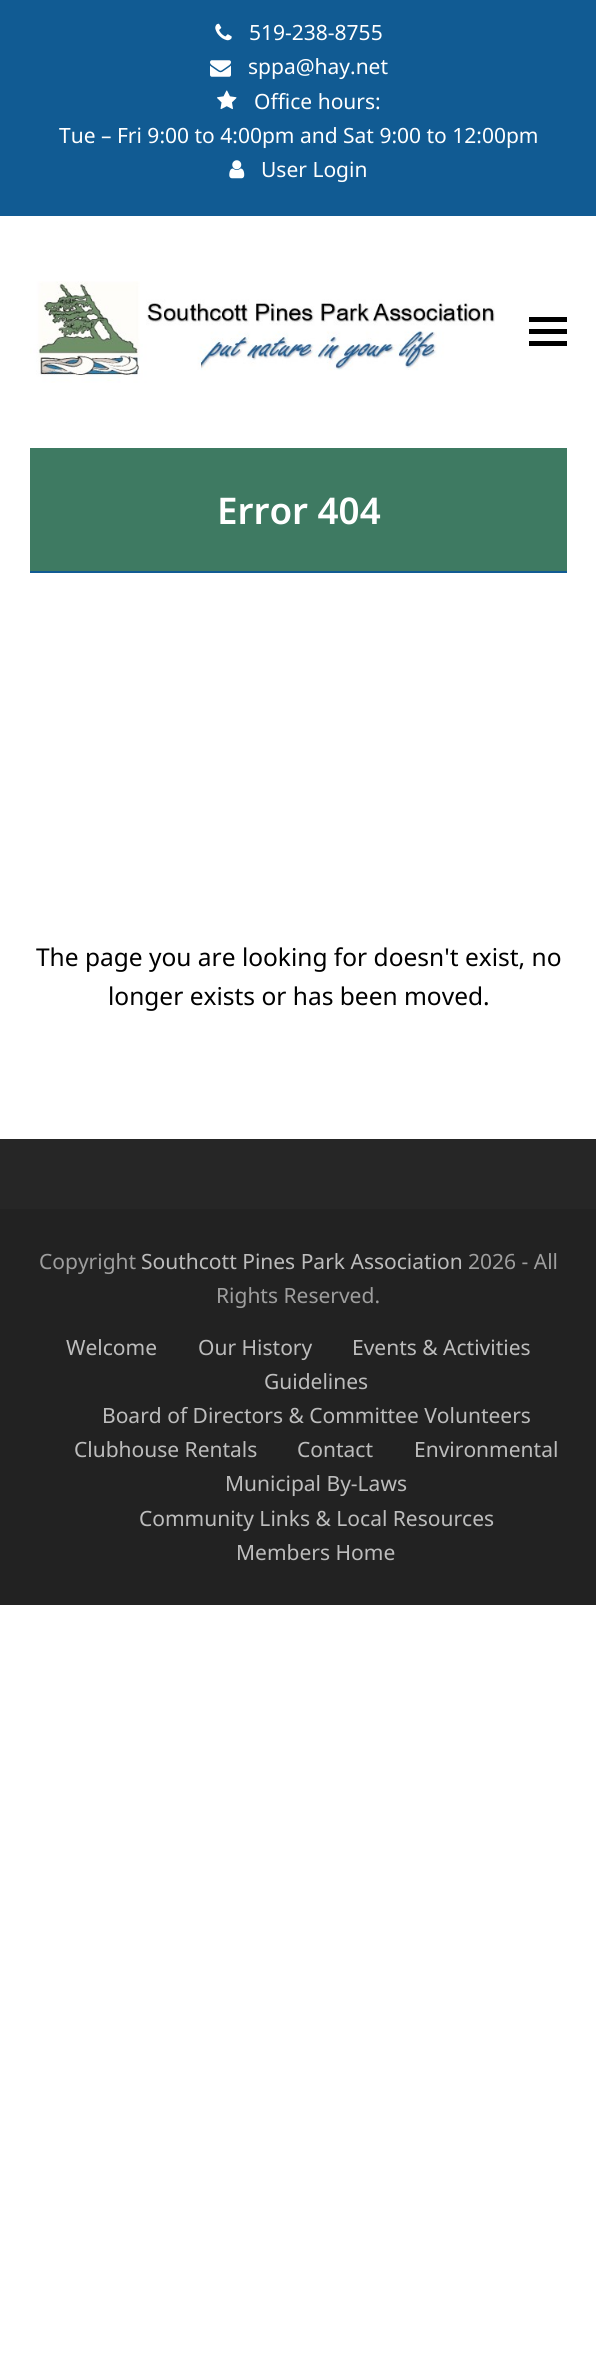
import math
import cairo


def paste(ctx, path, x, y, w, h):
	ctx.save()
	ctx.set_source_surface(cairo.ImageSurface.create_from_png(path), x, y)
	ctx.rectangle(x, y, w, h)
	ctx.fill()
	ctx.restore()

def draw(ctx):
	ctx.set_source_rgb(1, 1, 1)
	ctx.paint()
	ctx.set_source_rgb(0.067, 0.357, 0.576)
	ctx.rectangle(0, 0, 596, 216)
	ctx.fill()
	paste(ctx, 'media/1.png', 215, 23, 17, 18)
	ctx.select_font_face('Noto Sans')
	ctx.set_font_size(21)
	ctx.set_source_rgb(1, 1, 1)
	ctx.move_to(249, 40)
	ctx.show_text('519-238-8755')
	paste(ctx, 'media/2.png', 210, 60, 21, 17)
	ctx.move_to(248, 74)
	ctx.show_text('sppa@hay.net')
	paste(ctx, 'media/3.png', 217, 90, 20, 20)
	ctx.move_to(254, 109)
	ctx.show_text('Office hours:')
	ctx.move_to(59, 143)
	ctx.show_text('Tue – Fri 9:00 to 4:00pm and Sat 9:00 to 12:00pm')
	paste(ctx, 'media/4.png', 229, 160, 16, 19)
	ctx.move_to(261, 177)
	ctx.show_text('User Login')
	paste(ctx, 'media/5.png', 30, 281, 465, 102)
	ctx.set_source_rgb(0, 0, 0)
	ctx.rectangle(529, 329, 38, 5)
	ctx.rectangle(529, 317, 38, 5)
	ctx.rectangle(529, 341, 38, 5)
	ctx.fill()
	ctx.set_source_rgb(0.243, 0.478, 0.384)
	ctx.rectangle(30, 448, 537, 123)
	ctx.fill()
	ctx.set_source_rgb(0.067, 0.357, 0.576)
	ctx.rectangle(30, 571, 537, 2)
	ctx.fill()
	ctx.select_font_face('Noto Sans SemiBold')
	ctx.set_font_size(36.75)
	ctx.set_source_rgb(1, 1, 1)
	ctx.move_to(217, 524)
	ctx.show_text('Error 404')
	ctx.select_font_face('Noto Sans')
	ctx.set_font_size(24.5)
	ctx.set_source_rgb(0, 0, 0)
	ctx.move_to(36, 966)
	ctx.show_text('The page you are looking for doesn\'t exist, no')
	ctx.move_to(108, 1005)
	ctx.show_text('longer exists or has been moved.')
	ctx.set_source_rgb(0.149, 0.149, 0.149)
	ctx.rectangle(0, 1139, 596, 70)
	ctx.fill()
	ctx.set_source_rgb(0.133, 0.133, 0.133)
	ctx.rectangle(0, 1209, 596, 396)
	ctx.fill()
	ctx.set_font_size(21)
	ctx.set_source_rgb(0.62, 0.62, 0.62)
	ctx.move_to(39, 1269)
	ctx.show_text('Copyright')
	ctx.set_source_rgb(0.741, 0.741, 0.741)
	ctx.move_to(141, 1269)
	ctx.show_text('Southcott Pines Park Association')
	ctx.set_source_rgb(0.62, 0.62, 0.62)
	ctx.move_to(468, 1269)
	ctx.show_text('2026 - All')
	ctx.move_to(216, 1303)
	ctx.show_text('Rights Reserved.')
	ctx.set_source_rgb(0.741, 0.741, 0.741)
	for x, y, s in [
		(66, 1355, 'Welcome'),
		(198, 1355, 'Our History'),
		(352, 1355, 'Events & Activities'),
		(264, 1389, 'Guidelines'),
		(102, 1423, 'Board of Directors & Committee Volunteers'),
		(74, 1457, 'Clubhouse Rentals'),
		(297, 1457, 'Contact'),
		(414, 1457, 'Environmental'),
		(225, 1491, 'Municipal By-Laws'),
		(139, 1526, 'Community Links & Local Resources'),
		(236, 1560, 'Members Home'),
	]:
		ctx.move_to(x, y)
		ctx.show_text(s)


surface = cairo.ImageSurface(cairo.FORMAT_RGB24, 596, 2357)
ctx = cairo.Context(surface)
options = cairo.FontOptions()
options.set_hint_metrics(cairo.HINT_METRICS_OFF)
options.set_hint_style(cairo.HINT_STYLE_NONE)
ctx.set_font_options(options)
ctx.set_miter_limit(4)
draw(ctx)
surface.write_to_png('image.png')
